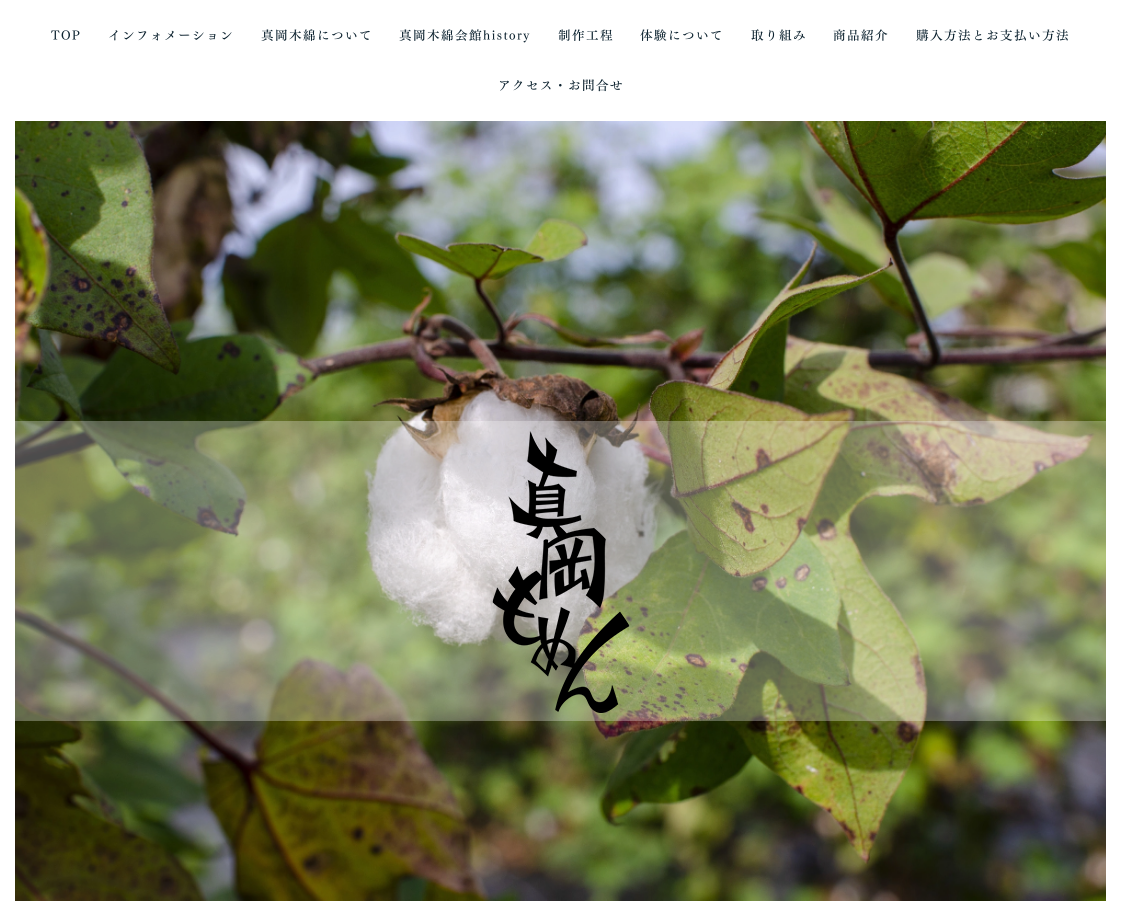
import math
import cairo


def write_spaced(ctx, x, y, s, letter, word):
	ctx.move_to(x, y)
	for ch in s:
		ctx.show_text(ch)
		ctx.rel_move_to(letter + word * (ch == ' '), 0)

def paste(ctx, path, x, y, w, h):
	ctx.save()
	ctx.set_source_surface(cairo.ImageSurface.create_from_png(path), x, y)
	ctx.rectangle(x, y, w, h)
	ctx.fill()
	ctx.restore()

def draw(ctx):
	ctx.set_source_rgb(1, 1, 1)
	ctx.paint()
	ctx.select_font_face('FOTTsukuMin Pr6 SemiBold')
	ctx.set_font_size(12.6)
	ctx.set_source_rgb(0.047, 0.133, 0.184)
	for x, y, s in [
		(51, 40, 'TOP'),
		(108, 40, 'インフォメーション'),
		(261, 40, '真岡木綿について'),
		(399, 40, '真岡木綿会館history'),
		(558, 40, '制作工程'),
		(640, 40, '体験について'),
		(751, 40, '取り組み'),
		(833, 40, '商品紹介'),
		(916, 40, '購入方法とお支払い方法'),
		(498, 90, 'アクセス・お問合せ'),
	]:
		write_spaced(ctx, x, y, s, 1.4, 0)
	paste(ctx, 'media/1.png', 15, 121, 1091, 780)
	ctx.set_source_rgba(1, 1, 1, 0.3)
	ctx.rectangle(15, 421, 1091, 300)
	ctx.fill()
	paste(ctx, 'media/2.png', 492, 431, 138, 283)


surface = cairo.ImageSurface(cairo.FORMAT_RGB24, 1121, 901)
ctx = cairo.Context(surface)
options = cairo.FontOptions()
options.set_hint_metrics(cairo.HINT_METRICS_OFF)
options.set_hint_style(cairo.HINT_STYLE_NONE)
ctx.set_font_options(options)
ctx.set_miter_limit(4)
draw(ctx)
surface.write_to_png('image.png')
